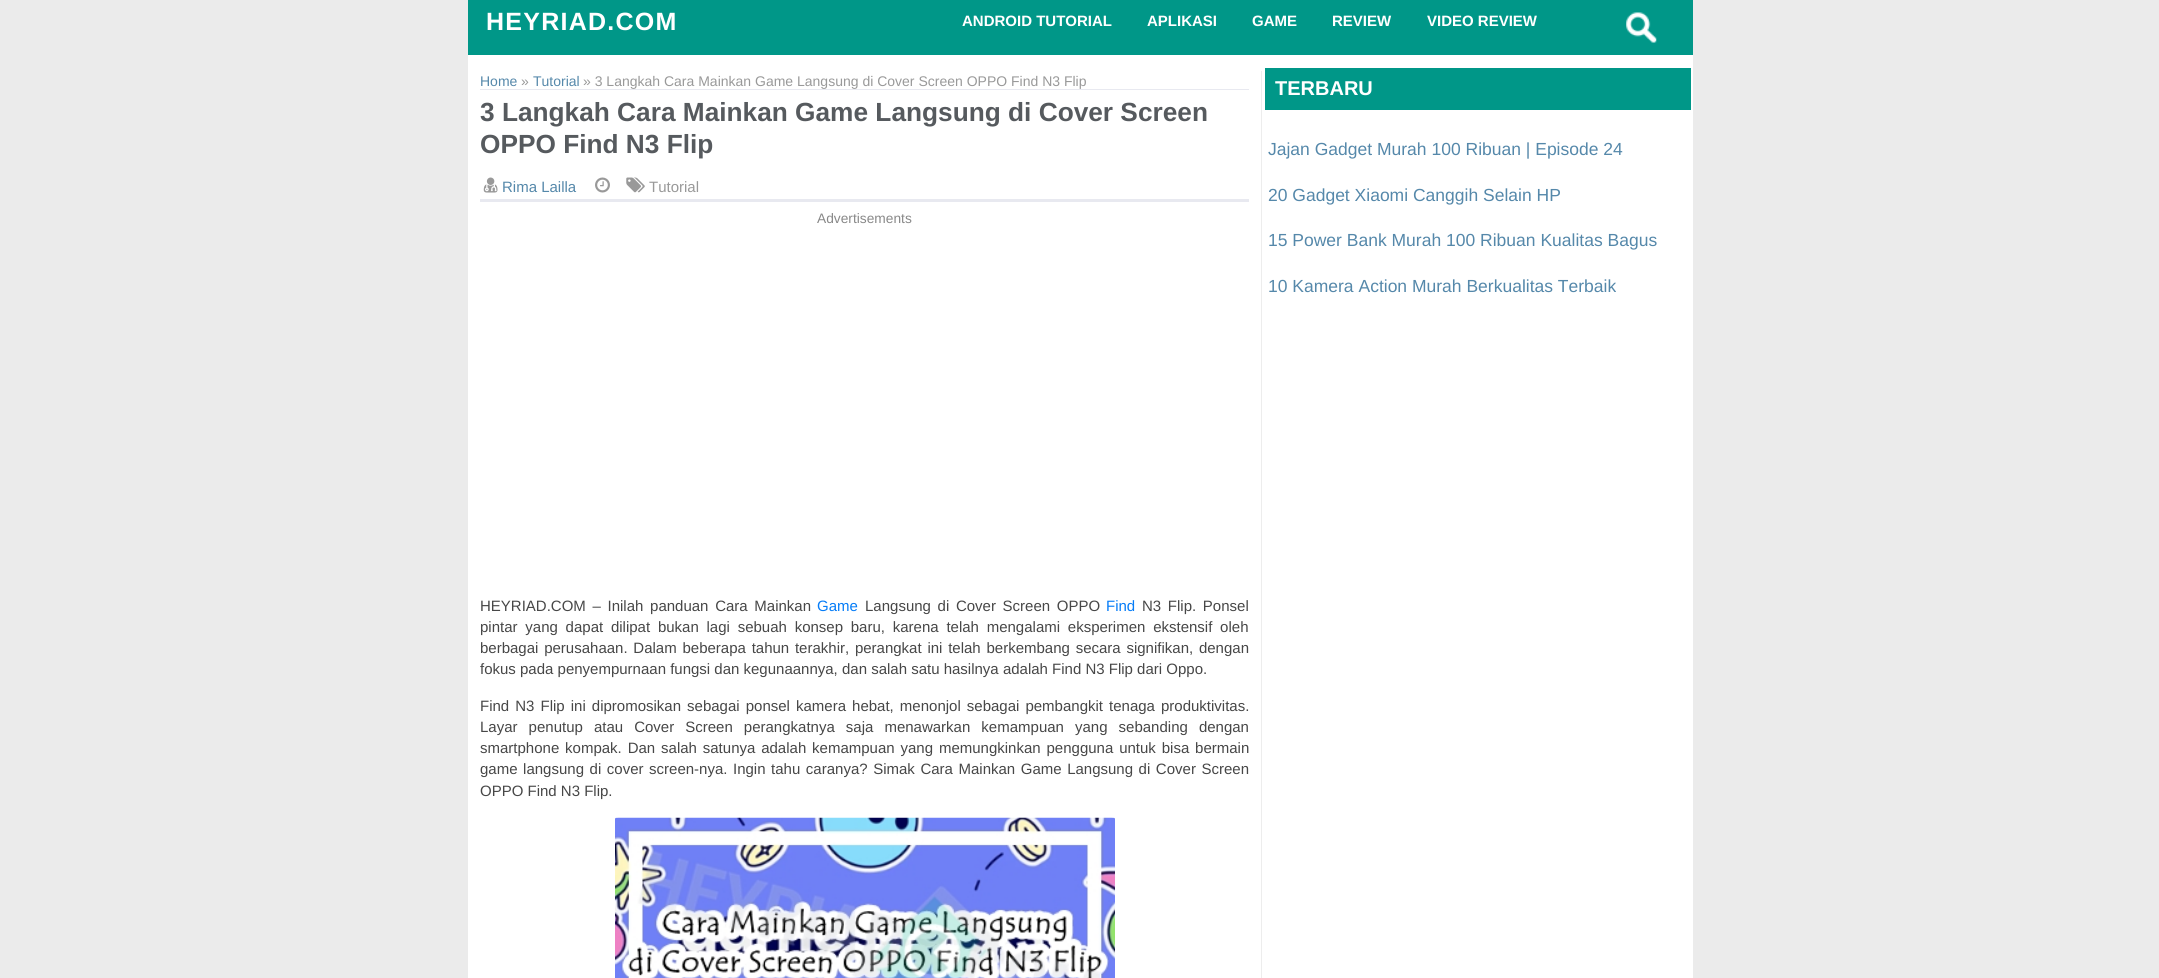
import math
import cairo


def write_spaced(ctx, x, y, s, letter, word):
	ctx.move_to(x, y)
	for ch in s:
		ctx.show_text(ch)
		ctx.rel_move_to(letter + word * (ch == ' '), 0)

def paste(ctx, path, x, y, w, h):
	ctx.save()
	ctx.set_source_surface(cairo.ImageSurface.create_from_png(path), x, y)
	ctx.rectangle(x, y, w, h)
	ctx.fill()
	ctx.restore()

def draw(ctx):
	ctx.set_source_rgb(0.918, 0.918, 0.918)
	ctx.paint()
	ctx.set_source_rgb(1, 1, 1)
	ctx.rectangle(468, 55, 1225, 923)
	ctx.fill()
	ctx.set_source_rgb(0, 0.592, 0.533)
	ctx.rectangle(468, 0, 1225, 55)
	ctx.fill()
	ctx.select_font_face('Liberation Sans', cairo.FONT_SLANT_NORMAL, cairo.FONT_WEIGHT_BOLD)
	ctx.set_font_size(25)
	ctx.set_source_rgb(1, 1, 1)
	write_spaced(ctx, 486, 30, 'HEYRIAD.COM', 1.25, 0)
	ctx.set_font_size(15)
	for x, y, s in [
		(962, 26, 'ANDROID TUTORIAL'),
		(1147, 26, 'APLIKASI'),
		(1252, 26, 'GAME'),
		(1332, 26, 'REVIEW'),
		(1427, 26, 'VIDEO REVIEW'),
	]:
		ctx.move_to(x, y)
		ctx.show_text(s)
	paste(ctx, 'media/1.png', 1626, 12, 31, 31)
	ctx.set_source_rgb(0.929, 0.929, 0.929)
	ctx.rectangle(1261, 71, 1, 907)
	ctx.fill()
	ctx.set_source_rgb(0.91, 0.914, 0.941)
	ctx.rectangle(480, 89, 769, 1)
	ctx.fill()
	ctx.select_font_face('Liberation Sans')
	ctx.set_font_size(14)
	ctx.set_source_rgb(0.333, 0.533, 0.667)
	ctx.move_to(480, 86)
	ctx.show_text('Home')
	ctx.set_source_rgb(0.6, 0.6, 0.6)
	ctx.move_to(521, 86)
	ctx.show_text('»')
	ctx.set_source_rgb(0.333, 0.533, 0.667)
	ctx.move_to(533, 86)
	ctx.show_text('Tutorial')
	ctx.set_source_rgb(0.6, 0.6, 0.6)
	ctx.move_to(583, 86)
	ctx.show_text('» 3 Langkah Cara Mainkan Game Langsung di Cover Screen OPPO Find N3 Flip')
	ctx.select_font_face('Liberation Sans', cairo.FONT_SLANT_NORMAL, cairo.FONT_WEIGHT_BOLD)
	ctx.set_font_size(26.25)
	ctx.set_source_rgb(0.337, 0.353, 0.369)
	ctx.move_to(480, 121)
	ctx.show_text('3 Langkah Cara Mainkan Game Langsung di Cover Screen')
	ctx.move_to(480, 153)
	ctx.show_text('OPPO Find N3 Flip')
	ctx.set_source_rgb(0.91, 0.914, 0.941)
	ctx.rectangle(480, 199, 769, 3)
	ctx.fill()
	paste(ctx, 'media/2.png', 483, 177, 15, 16)
	ctx.select_font_face('Liberation Sans')
	ctx.set_font_size(15)
	ctx.set_source_rgb(0.333, 0.533, 0.667)
	ctx.move_to(502, 192)
	ctx.show_text('Rima Lailla')
	paste(ctx, 'media/3.png', 595, 177, 15, 16)
	paste(ctx, 'media/4.png', 626, 177, 19, 16)
	ctx.set_source_rgb(0.6, 0.6, 0.6)
	ctx.move_to(649, 192)
	ctx.show_text('Tutorial')
	ctx.set_font_size(13.75)
	ctx.set_source_rgb(0.533, 0.533, 0.533)
	ctx.move_to(817, 223)
	ctx.show_text('Advertisements')
	ctx.set_font_size(15)
	ctx.set_source_rgb(0.278, 0.278, 0.278)
	write_spaced(ctx, 480, 611, 'HEYRIAD.COM – Inilah panduan Cara Mainkan', 0, 2.5)
	ctx.set_source_rgb(0.02, 0.486, 0.965)
	ctx.move_to(817, 611)
	ctx.show_text('Game')
	ctx.set_source_rgb(0.278, 0.278, 0.278)
	write_spaced(ctx, 865, 611, 'Langsung di Cover Screen OPPO', 0, 2.5)
	ctx.set_source_rgb(0.02, 0.486, 0.965)
	ctx.move_to(1106, 611)
	ctx.show_text('Find')
	ctx.set_source_rgb(0.278, 0.278, 0.278)
	write_spaced(ctx, 1142, 611, 'N3 Flip. Ponsel', 0, 2.5)
	write_spaced(ctx, 480, 632, 'pintar yang dapat dilipat bukan lagi sebuah konsep baru, karena telah mengalami eksperimen ekstensif oleh', 0, 3.6)
	write_spaced(ctx, 480, 653, 'berbagai perusahaan. Dalam beberapa tahun terakhir, perangkat ini telah berkembang secara signifikan, dengan', 0, 1.6)
	ctx.move_to(480, 674)
	ctx.show_text('fokus pada penyempurnaan fungsi dan kegunaannya, dan salah satu hasilnya adalah Find N3 Flip dari Oppo.')
	write_spaced(ctx, 480, 711, 'Find N3 Flip ini dipromosikan sebagai ponsel kamera hebat, menonjol sebagai pembangkit tenaga produktivitas.', 0, 1.9)
	write_spaced(ctx, 480, 732, 'Layar penutup atau Cover Screen perangkatnya saja menawarkan kemampuan yang sebanding dengan', 0, 6.9)
	write_spaced(ctx, 480, 753, 'smartphone kompak. Dan salah satunya adalah kemampuan yang memungkinkan pengguna untuk bisa bermain', 0, 1.7)
	write_spaced(ctx, 480, 774, 'game langsung di cover screen-nya. Ingin tahu caranya? Simak Cara Mainkan Game Langsung di Cover Screen', 0, 1.4)
	ctx.move_to(480, 796)
	ctx.show_text('OPPO Find N3 Flip.')
	paste(ctx, 'media/5.png', 615, 817, 500, 161)
	ctx.set_source_rgb(0, 0.592, 0.533)
	ctx.rectangle(1265, 68, 426, 42)
	ctx.fill()
	ctx.select_font_face('Liberation Sans', cairo.FONT_SLANT_NORMAL, cairo.FONT_WEIGHT_BOLD)
	ctx.set_font_size(20)
	ctx.set_source_rgb(1, 1, 1)
	ctx.move_to(1275, 95)
	ctx.show_text('TERBARU')
	ctx.select_font_face('Liberation Sans')
	ctx.set_font_size(17.5)
	ctx.set_source_rgb(0.333, 0.533, 0.667)
	for x, y, s in [
		(1268, 155, 'Jajan Gadget Murah 100 Ribuan | Episode 24'),
		(1268, 201, '20 Gadget Xiaomi Canggih Selain HP'),
		(1268, 246, '15 Power Bank Murah 100 Ribuan Kualitas Bagus'),
		(1268, 292, '10 Kamera Action Murah Berkualitas Terbaik'),
	]:
		ctx.move_to(x, y)
		ctx.show_text(s)


surface = cairo.ImageSurface(cairo.FORMAT_RGB24, 2159, 978)
ctx = cairo.Context(surface)
options = cairo.FontOptions()
options.set_hint_metrics(cairo.HINT_METRICS_OFF)
options.set_hint_style(cairo.HINT_STYLE_NONE)
ctx.set_font_options(options)
ctx.set_miter_limit(4)
draw(ctx)
surface.write_to_png('image.png')
